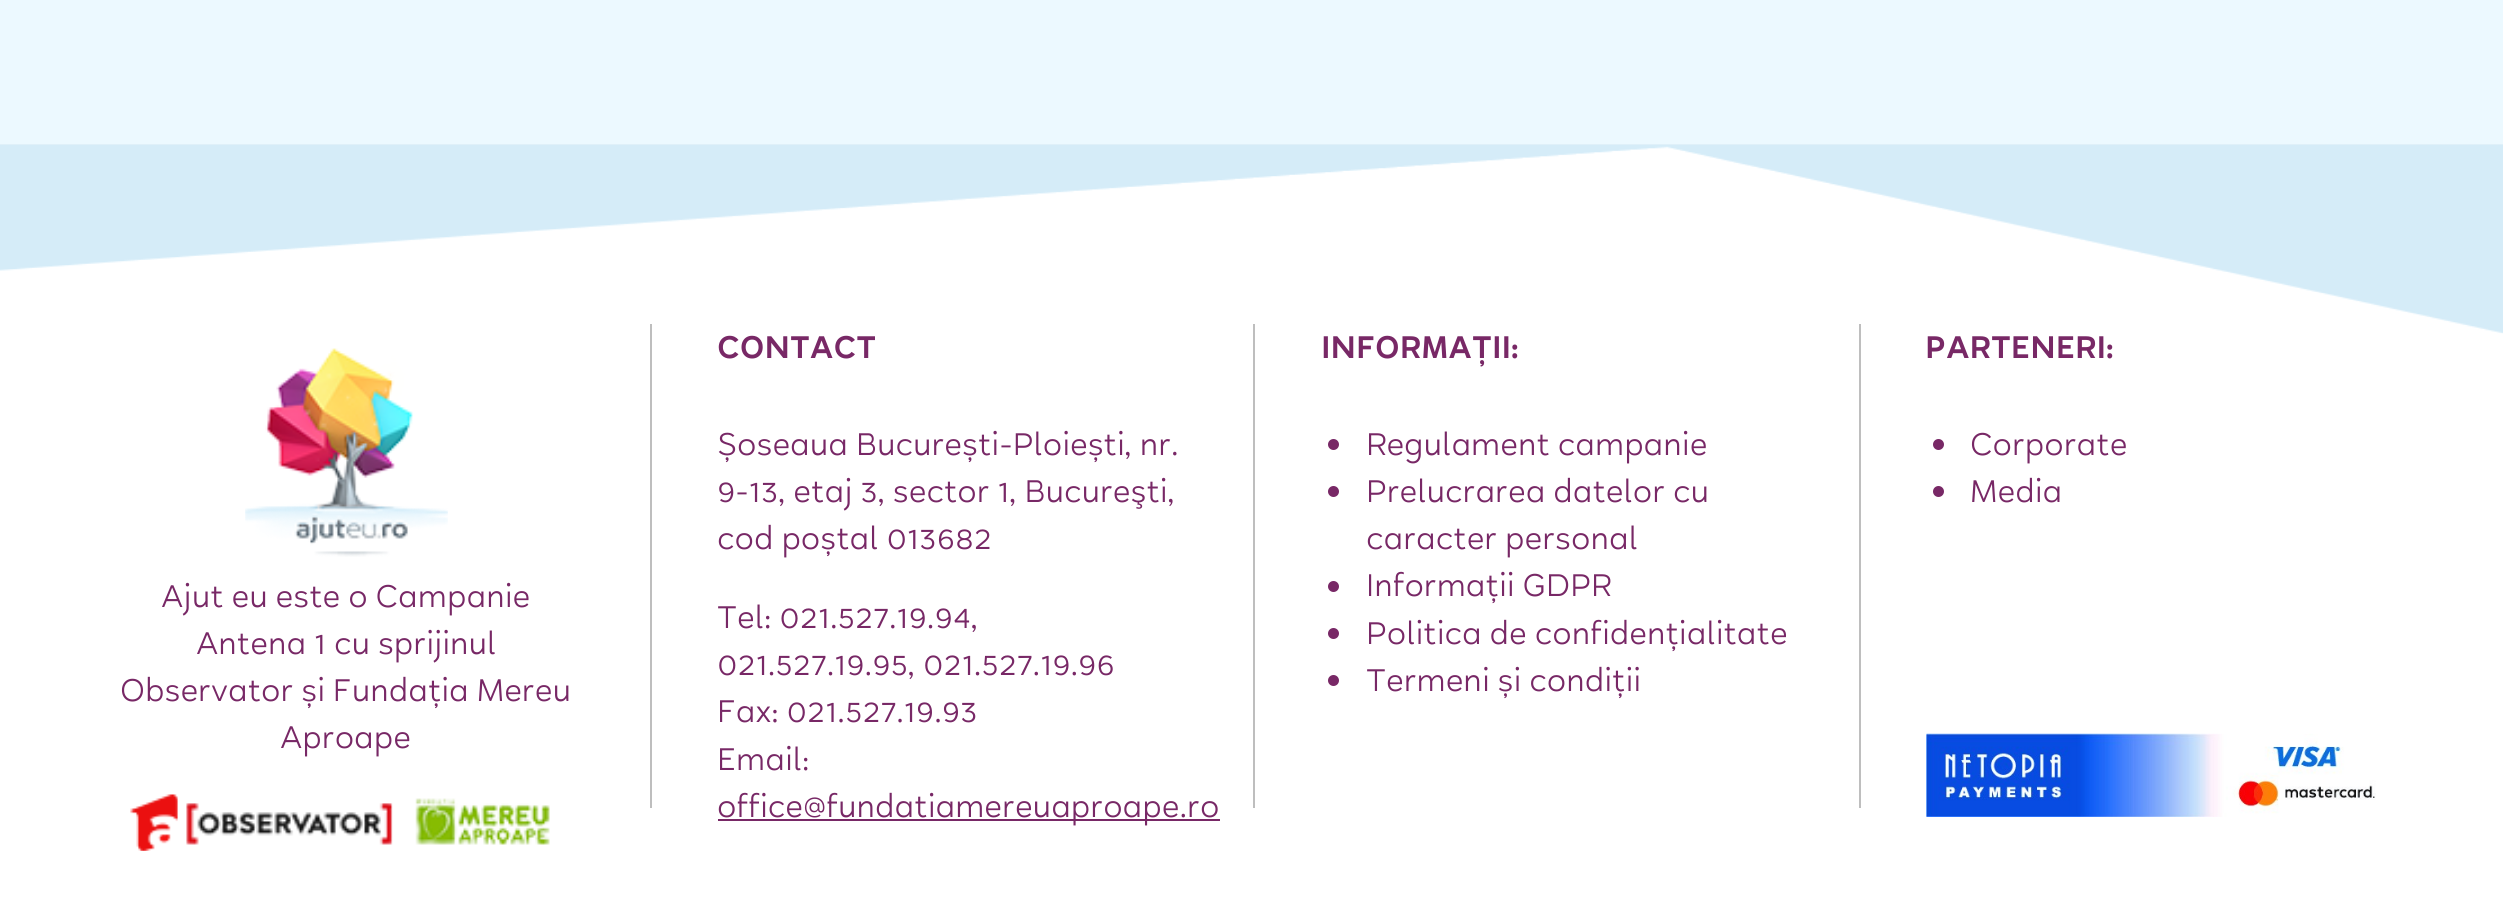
import math
import cairo


def paste(ctx, path, x, y, w, h):
	ctx.save()
	ctx.set_source_surface(cairo.ImageSurface.create_from_png(path), x, y)
	ctx.rectangle(x, y, w, h)
	ctx.fill()
	ctx.restore()

def draw(ctx):
	ctx.set_source_rgb(1, 1, 1)
	ctx.paint()
	paste(ctx, 'media/1.png', 0, 0, 2503, 144)
	paste(ctx, 'media/2.png', 0, 144, 2503, 190)
	ctx.set_source_rgb(0.745, 0.745, 0.745)
	ctx.rectangle(650, 324, 2, 484)
	ctx.fill()
	ctx.select_font_face('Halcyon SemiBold')
	ctx.set_font_size(33.75)
	ctx.set_source_rgb(0.471, 0.157, 0.4)
	ctx.move_to(717, 358)
	ctx.show_text('CONTACT')
	ctx.select_font_face('Halcyon Medium')
	for x, y, s in [
		(717, 455, 'Șoseaua București-Ploiești, nr.'),
		(717, 502, '9-13, etaj 3, sector 1, Bucureşti,'),
		(717, 549, 'cod poștal 013682'),
		(717, 628, 'Tel: 021.527.19.94,'),
		(717, 675, '021.527.19.95, 021.527.19.96'),
		(717, 722, 'Fax: 021.527.19.93'),
		(717, 770, 'Email:'),
	]:
		ctx.move_to(x, y)
		ctx.show_text(s)
	ctx.rectangle(718, 819, 502, 2)
	ctx.fill()
	ctx.move_to(717, 817)
	ctx.show_text('office@fundatiamereuaproape.ro')
	ctx.set_source_rgb(0.745, 0.745, 0.745)
	ctx.rectangle(1253, 324, 2, 484)
	ctx.fill()
	ctx.select_font_face('Halcyon SemiBold')
	ctx.set_source_rgb(0.471, 0.157, 0.4)
	ctx.move_to(1321, 358)
	ctx.show_text('INFORMAȚII:')
	ctx.new_path()
	ctx.arc(1333.5, 444.5, 5.5, 0, 2 * math.pi)
	ctx.fill()
	ctx.select_font_face('Halcyon Medium')
	ctx.move_to(1366, 455)
	ctx.show_text('Regulament campanie')
	ctx.new_path()
	ctx.arc(1333.5, 491.5, 5.5, 0, 2 * math.pi)
	ctx.fill()
	ctx.move_to(1366, 502)
	ctx.show_text('Prelucrarea datelor cu')
	ctx.move_to(1366, 549)
	ctx.show_text('caracter personal')
	ctx.new_path()
	ctx.arc(1333.5, 586.5, 5.5, 0, 2 * math.pi)
	ctx.fill()
	ctx.move_to(1366, 596)
	ctx.show_text('Informații GDPR')
	ctx.new_path()
	ctx.arc(1333.5, 633.5, 5.5, 0, 2 * math.pi)
	ctx.fill()
	ctx.move_to(1366, 644)
	ctx.show_text('Politica de confidențialitate')
	ctx.new_path()
	ctx.arc(1333.5, 680.5, 5.5, 0, 2 * math.pi)
	ctx.fill()
	ctx.move_to(1366, 691)
	ctx.show_text('Termeni și condiții')
	ctx.set_source_rgb(0.745, 0.745, 0.745)
	ctx.rectangle(1859, 324, 2, 484)
	ctx.fill()
	ctx.select_font_face('Halcyon SemiBold')
	ctx.set_source_rgb(0.471, 0.157, 0.4)
	ctx.move_to(1925, 358)
	ctx.show_text('PARTENERI:')
	ctx.new_path()
	ctx.arc(1938.5, 444.5, 5.5, 0, 2 * math.pi)
	ctx.fill()
	ctx.select_font_face('Halcyon Medium')
	ctx.move_to(1970, 455)
	ctx.show_text('Corporate')
	ctx.new_path()
	ctx.arc(1938.5, 491.5, 5.5, 0, 2 * math.pi)
	ctx.fill()
	ctx.move_to(1970, 502)
	ctx.show_text('Media')
	paste(ctx, 'media/3.png', 1926, 733, 450, 84)
	paste(ctx, 'media/4.png', 245, 348, 203, 209)
	for x, y, s in [
		(161, 607, 'Ajut eu este o Campanie'),
		(196, 654, 'Antena 1 cu sprijinul'),
		(120, 701, 'Observator și Fundația Mereu'),
		(280, 748, 'Aproape'),
	]:
		ctx.move_to(x, y)
		ctx.show_text(s)
	paste(ctx, 'media/5.png', 130, 794, 48, 57)
	paste(ctx, 'media/6.png', 177, 796, 216, 49)
	paste(ctx, 'media/7.png', 415, 798, 135, 47)


surface = cairo.ImageSurface(cairo.FORMAT_RGB24, 2503, 916)
ctx = cairo.Context(surface)
options = cairo.FontOptions()
options.set_hint_metrics(cairo.HINT_METRICS_OFF)
options.set_hint_style(cairo.HINT_STYLE_NONE)
ctx.set_font_options(options)
ctx.set_miter_limit(4)
draw(ctx)
surface.write_to_png('image.png')
